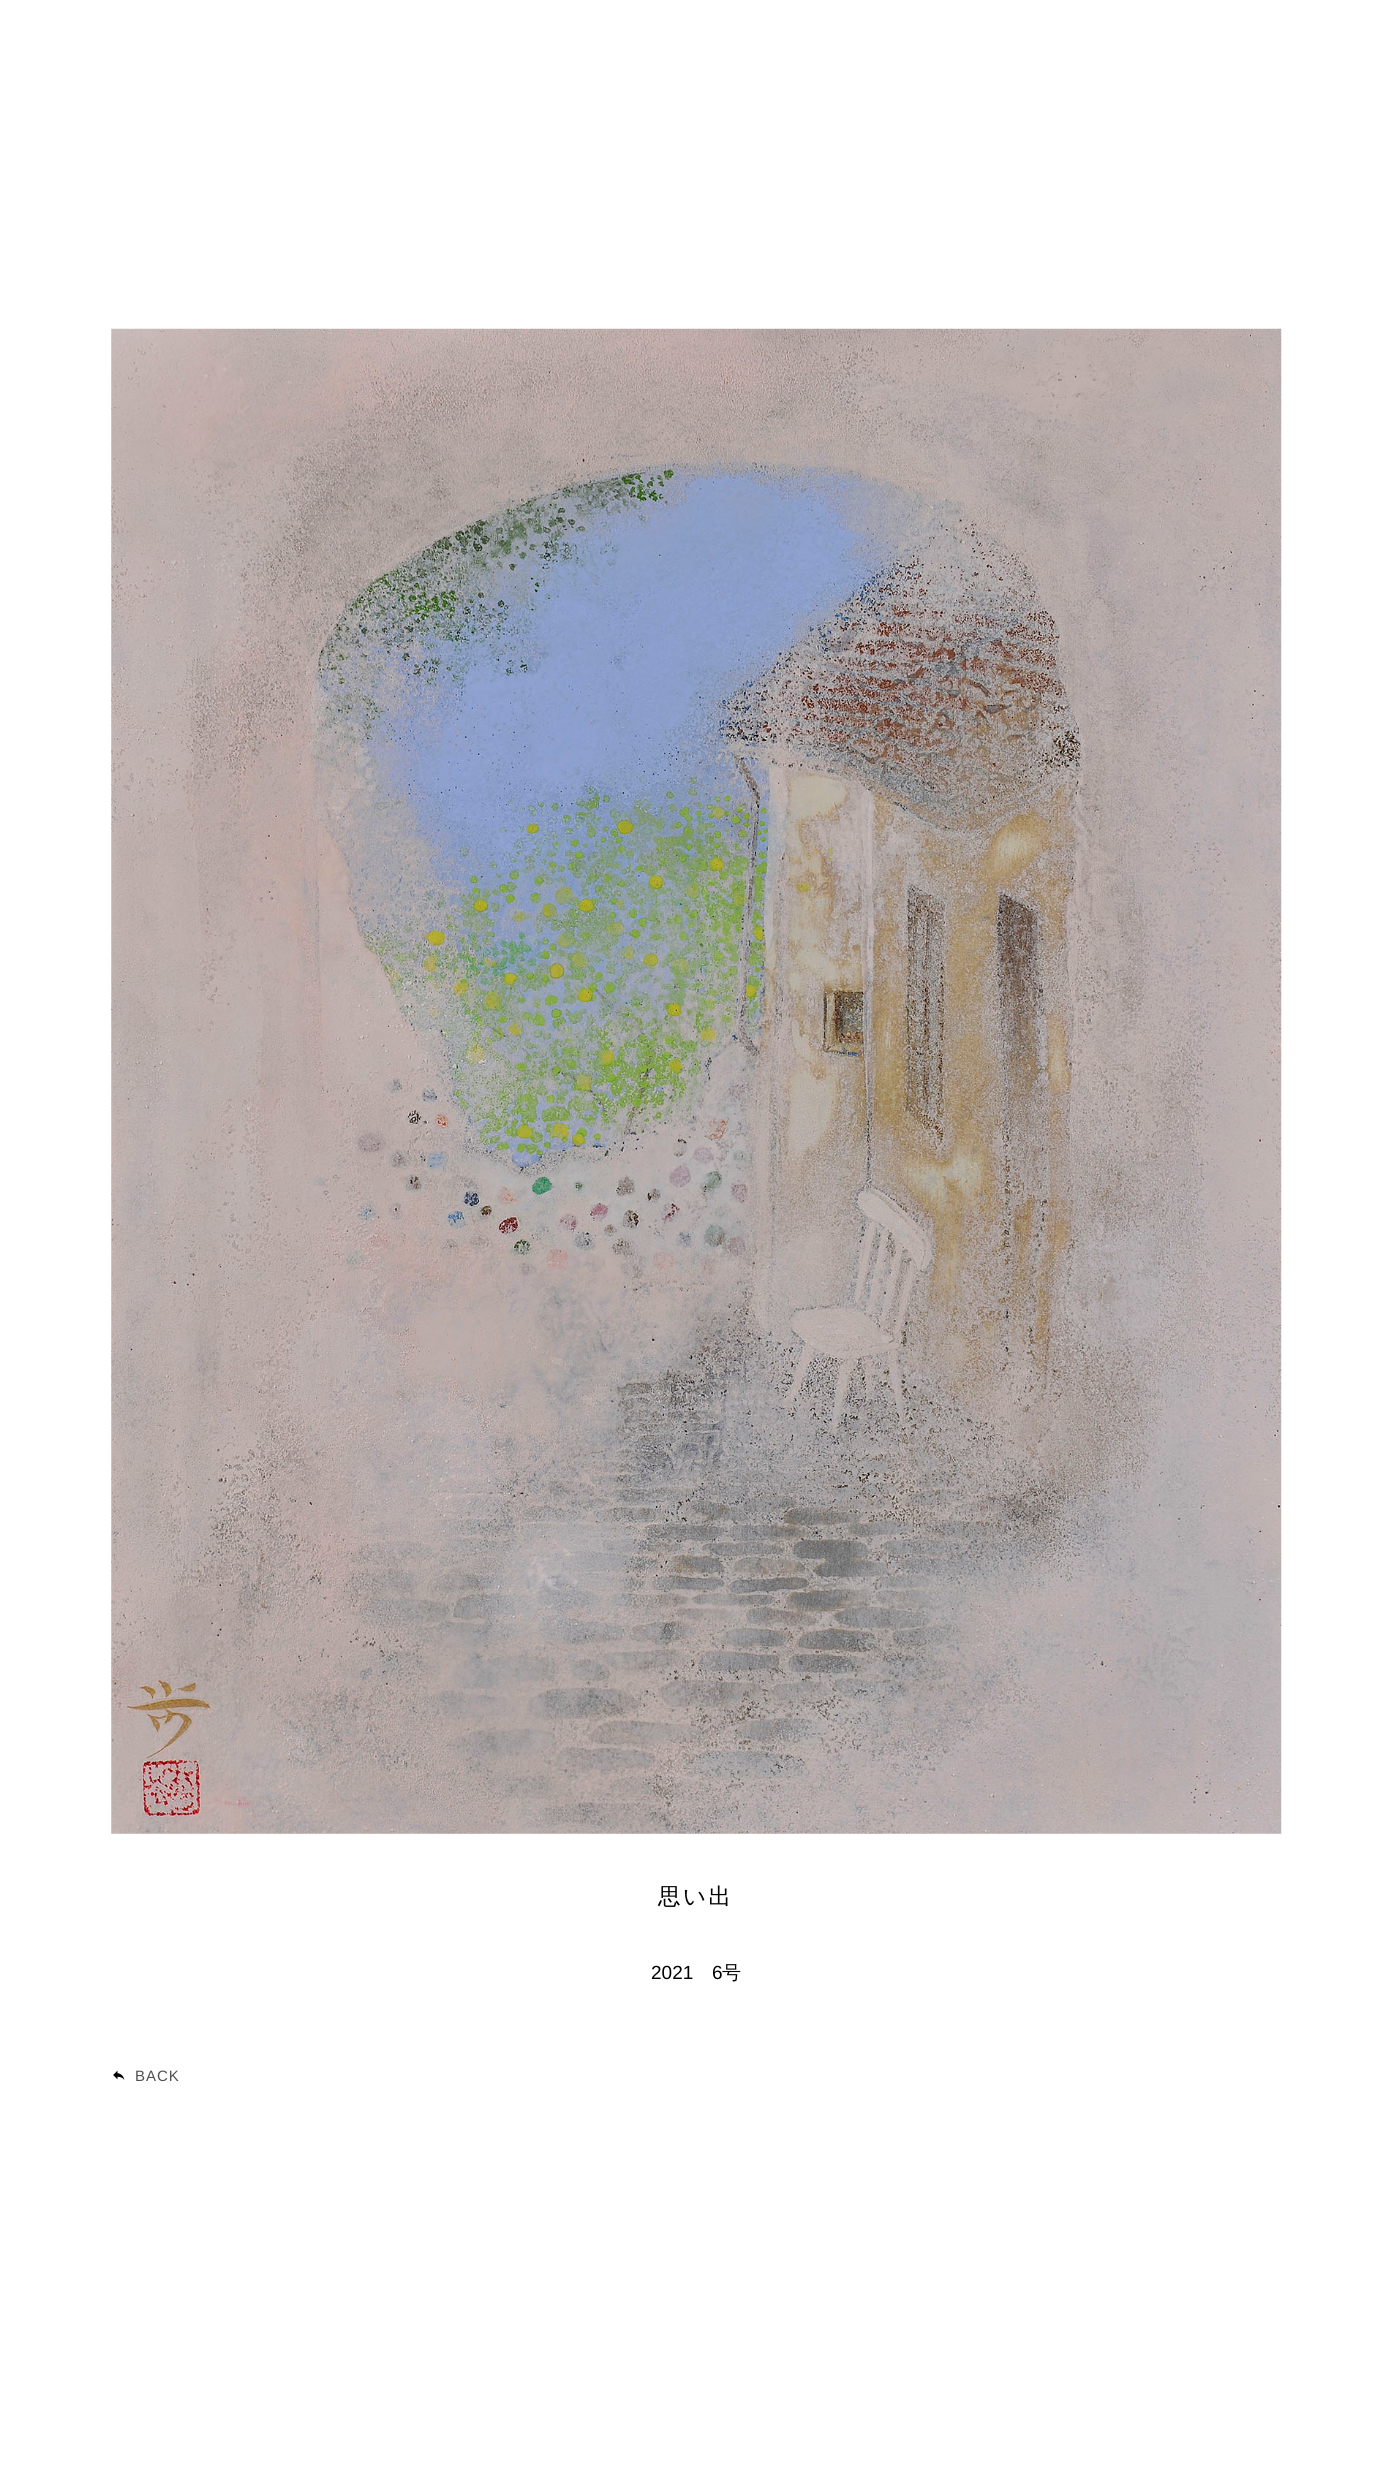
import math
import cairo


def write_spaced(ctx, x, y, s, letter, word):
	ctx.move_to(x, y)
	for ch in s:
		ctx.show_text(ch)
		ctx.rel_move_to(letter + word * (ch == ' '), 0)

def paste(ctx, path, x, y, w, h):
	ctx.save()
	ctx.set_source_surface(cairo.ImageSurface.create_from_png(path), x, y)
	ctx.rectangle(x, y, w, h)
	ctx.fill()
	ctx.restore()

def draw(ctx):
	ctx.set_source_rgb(1, 1, 1)
	ctx.paint()
	paste(ctx, 'media/1.png', 111, 328, 1171, 1506)
	ctx.select_font_face('WenQuanYi Zen Hei Medium')
	ctx.set_font_size(22.5)
	ctx.set_source_rgb(0, 0, 0)
	write_spaced(ctx, 658, 1904, '思い出', 2.5, 0)
	ctx.select_font_face('Liberation Sans')
	ctx.set_font_size(19)
	ctx.move_to(651, 1979)
	ctx.show_text('2021')
	ctx.move_to(712, 1979)
	ctx.show_text('6')
	ctx.select_font_face('WenQuanYi Zen Hei Medium')
	ctx.move_to(722, 1979)
	ctx.show_text('号')
	paste(ctx, 'media/2.png', 113, 2070, 12, 10)
	ctx.select_font_face('Liberation Sans')
	ctx.set_font_size(15)
	ctx.set_source_rgb(0.314, 0.314, 0.314)
	write_spaced(ctx, 135, 2081, 'BACK', 1, 0)


surface = cairo.ImageSurface(cairo.FORMAT_RGB24, 1392, 2477)
ctx = cairo.Context(surface)
options = cairo.FontOptions()
options.set_hint_metrics(cairo.HINT_METRICS_OFF)
options.set_hint_style(cairo.HINT_STYLE_NONE)
ctx.set_font_options(options)
ctx.set_miter_limit(4)
draw(ctx)
surface.write_to_png('image.png')
